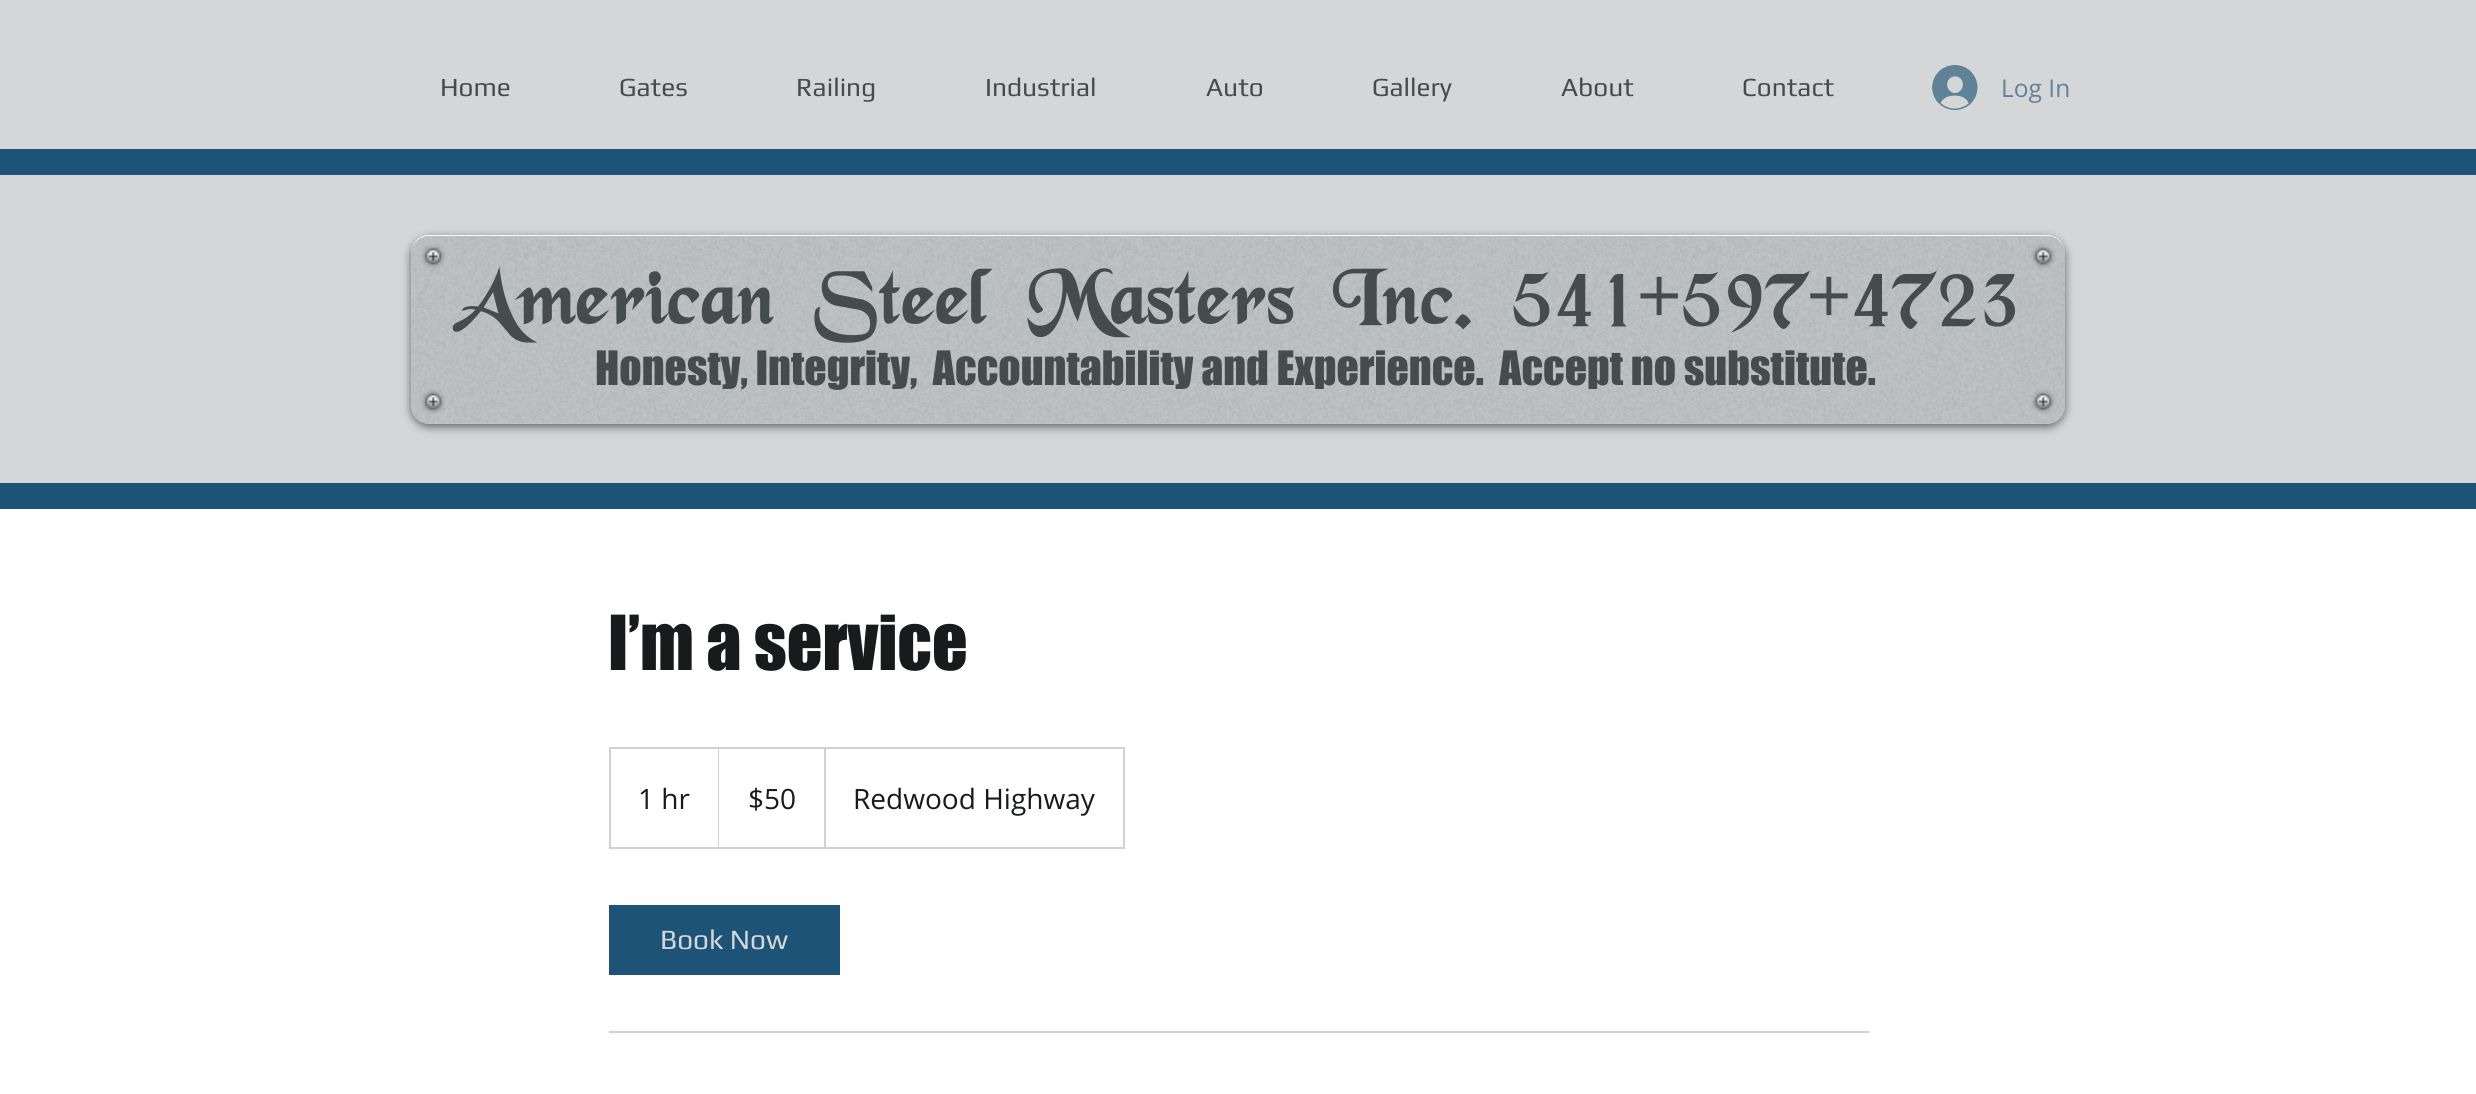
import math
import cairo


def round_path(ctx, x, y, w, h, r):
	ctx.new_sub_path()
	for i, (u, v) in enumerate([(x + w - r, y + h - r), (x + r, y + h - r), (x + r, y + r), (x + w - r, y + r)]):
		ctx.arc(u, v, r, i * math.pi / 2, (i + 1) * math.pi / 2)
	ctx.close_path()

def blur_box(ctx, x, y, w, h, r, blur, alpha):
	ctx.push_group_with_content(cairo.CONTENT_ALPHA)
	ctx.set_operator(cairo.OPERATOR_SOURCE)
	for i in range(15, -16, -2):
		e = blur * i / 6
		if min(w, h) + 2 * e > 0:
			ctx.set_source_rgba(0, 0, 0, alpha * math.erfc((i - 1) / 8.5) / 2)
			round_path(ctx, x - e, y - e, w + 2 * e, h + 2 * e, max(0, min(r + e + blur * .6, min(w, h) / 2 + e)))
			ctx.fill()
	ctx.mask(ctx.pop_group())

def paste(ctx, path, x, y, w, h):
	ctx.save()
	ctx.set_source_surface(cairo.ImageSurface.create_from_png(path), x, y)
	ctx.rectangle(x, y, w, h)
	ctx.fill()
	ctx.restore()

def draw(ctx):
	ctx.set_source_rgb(0.831, 0.839, 0.843)
	ctx.paint()
	ctx.select_font_face('Play')
	ctx.set_font_size(26.25)
	ctx.set_source_rgb(0.275, 0.294, 0.306)
	for x, y, s in [
		(440, 96, 'Home'),
		(619, 96, 'Gates'),
		(796, 96, 'Railing'),
		(985, 96, 'Industrial'),
		(1206, 96, 'Auto'),
		(1372, 96, 'Gallery'),
		(1561, 96, 'About'),
		(1742, 96, 'Contact'),
	]:
		ctx.move_to(x, y)
		ctx.show_text(s)
	paste(ctx, 'media/1.png', 1932, 65, 46, 45)
	ctx.select_font_face('Open Sans')
	ctx.set_font_size(24.5)
	ctx.set_source_rgb(0.376, 0.51, 0.6)
	ctx.move_to(2001, 97)
	ctx.show_text('Log In')
	ctx.set_source_rgb(0.114, 0.325, 0.467)
	ctx.rectangle(0, 149, 2476, 26)
	ctx.fill()
	ctx.set_source_rgb(0, 0, 0)
	blur_box(ctx, 411, 238, 1654, 189, 18, 4.5, 0.53)
	ctx.set_source_rgb(0.753, 0.765, 0.773)
	round_path(ctx, 411, 235, 1654, 189, 18)
	ctx.fill()
	paste(ctx, 'media/2.png', 411, 235, 1654, 188)
	ctx.set_source_rgba(1, 1, 1, 0.92)
	ctx.new_path()
	ctx.move_to(429, 236)
	ctx.line_to(2048, 236)
	ctx.curve_to(2057, 236, 2065, 244, 2065, 254)
	ctx.curve_to(2065, 244, 2058, 235, 2047, 235)
	ctx.line_to(429, 235)
	ctx.curve_to(418, 235, 411, 244, 411, 254)
	ctx.curve_to(411, 244, 419, 236, 429, 236)
	ctx.close_path()
	ctx.fill()
	paste(ctx, 'media/3.png', 421, 244, 24, 25)
	paste(ctx, 'media/4.png', 2031, 244, 24, 25)
	ctx.select_font_face('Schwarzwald', cairo.FONT_SLANT_NORMAL, cairo.FONT_WEIGHT_BOLD)
	ctx.set_font_size(77)
	ctx.set_source_rgb(0.275, 0.294, 0.306)
	ctx.move_to(451, 324)
	ctx.show_text('American Steel Masters Inc. 541-597-4723')
	ctx.select_font_face('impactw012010')
	ctx.set_font_size(43.75)
	ctx.move_to(595, 385)
	ctx.show_text('Honesty, Integrity,  Accountability and Experience.  Accept no substitute.')
	paste(ctx, 'media/5.png', 421, 390, 24, 24)
	paste(ctx, 'media/6.png', 2031, 390, 24, 24)
	ctx.set_source_rgb(0.114, 0.325, 0.467)
	ctx.rectangle(0, 483, 2476, 26)
	ctx.fill()
	ctx.set_source_rgb(1, 1, 1)
	ctx.rectangle(0, 509, 2476, 585)
	ctx.fill()
	ctx.set_font_size(70)
	ctx.set_source_rgb(0.094, 0.102, 0.11)
	ctx.move_to(608, 670)
	ctx.show_text('I’m a service')
	ctx.rectangle(610, 748, 514, 100)
	ctx.set_source_rgb(0.82, 0.82, 0.824)
	ctx.stroke()
	ctx.select_font_face('Open Sans')
	ctx.set_font_size(28)
	ctx.set_source_rgb(0.094, 0.102, 0.11)
	ctx.move_to(638, 809)
	ctx.show_text('1 hr')
	ctx.set_source_rgb(0.82, 0.82, 0.824)
	ctx.new_path()
	ctx.move_to(718, 847)
	ctx.line_to(718, 747)
	ctx.line_to(719, 749)
	ctx.line_to(719, 847)
	ctx.close_path()
	ctx.fill()
	ctx.set_source_rgb(0.094, 0.102, 0.11)
	ctx.move_to(748, 809)
	ctx.show_text('$50')
	ctx.save()
	ctx.rectangle(611, 749, 513, 98)
	ctx.clip()
	ctx.set_source_rgb(0.82, 0.82, 0.824)
	ctx.new_path()
	ctx.move_to(824, 847)
	ctx.line_to(824, 747)
	ctx.line_to(826, 749)
	ctx.line_to(826, 847)
	ctx.close_path()
	ctx.fill()
	ctx.restore()
	ctx.move_to(853, 809)
	ctx.show_text('Redwood Highway')
	ctx.set_source_rgb(0.114, 0.325, 0.467)
	ctx.rectangle(609, 905, 231, 70)
	ctx.fill()
	ctx.select_font_face('Play')
	ctx.set_source_rgb(0.831, 0.839, 0.843)
	ctx.move_to(660, 949)
	ctx.show_text('Book Now')
	ctx.set_source_rgb(0.82, 0.82, 0.824)
	ctx.rectangle(609, 1031, 1260, 2)
	ctx.fill()


surface = cairo.ImageSurface(cairo.FORMAT_RGB24, 2476, 1094)
ctx = cairo.Context(surface)
options = cairo.FontOptions()
options.set_hint_metrics(cairo.HINT_METRICS_OFF)
options.set_hint_style(cairo.HINT_STYLE_NONE)
ctx.set_font_options(options)
ctx.set_miter_limit(4)
draw(ctx)
surface.write_to_png('image.png')
